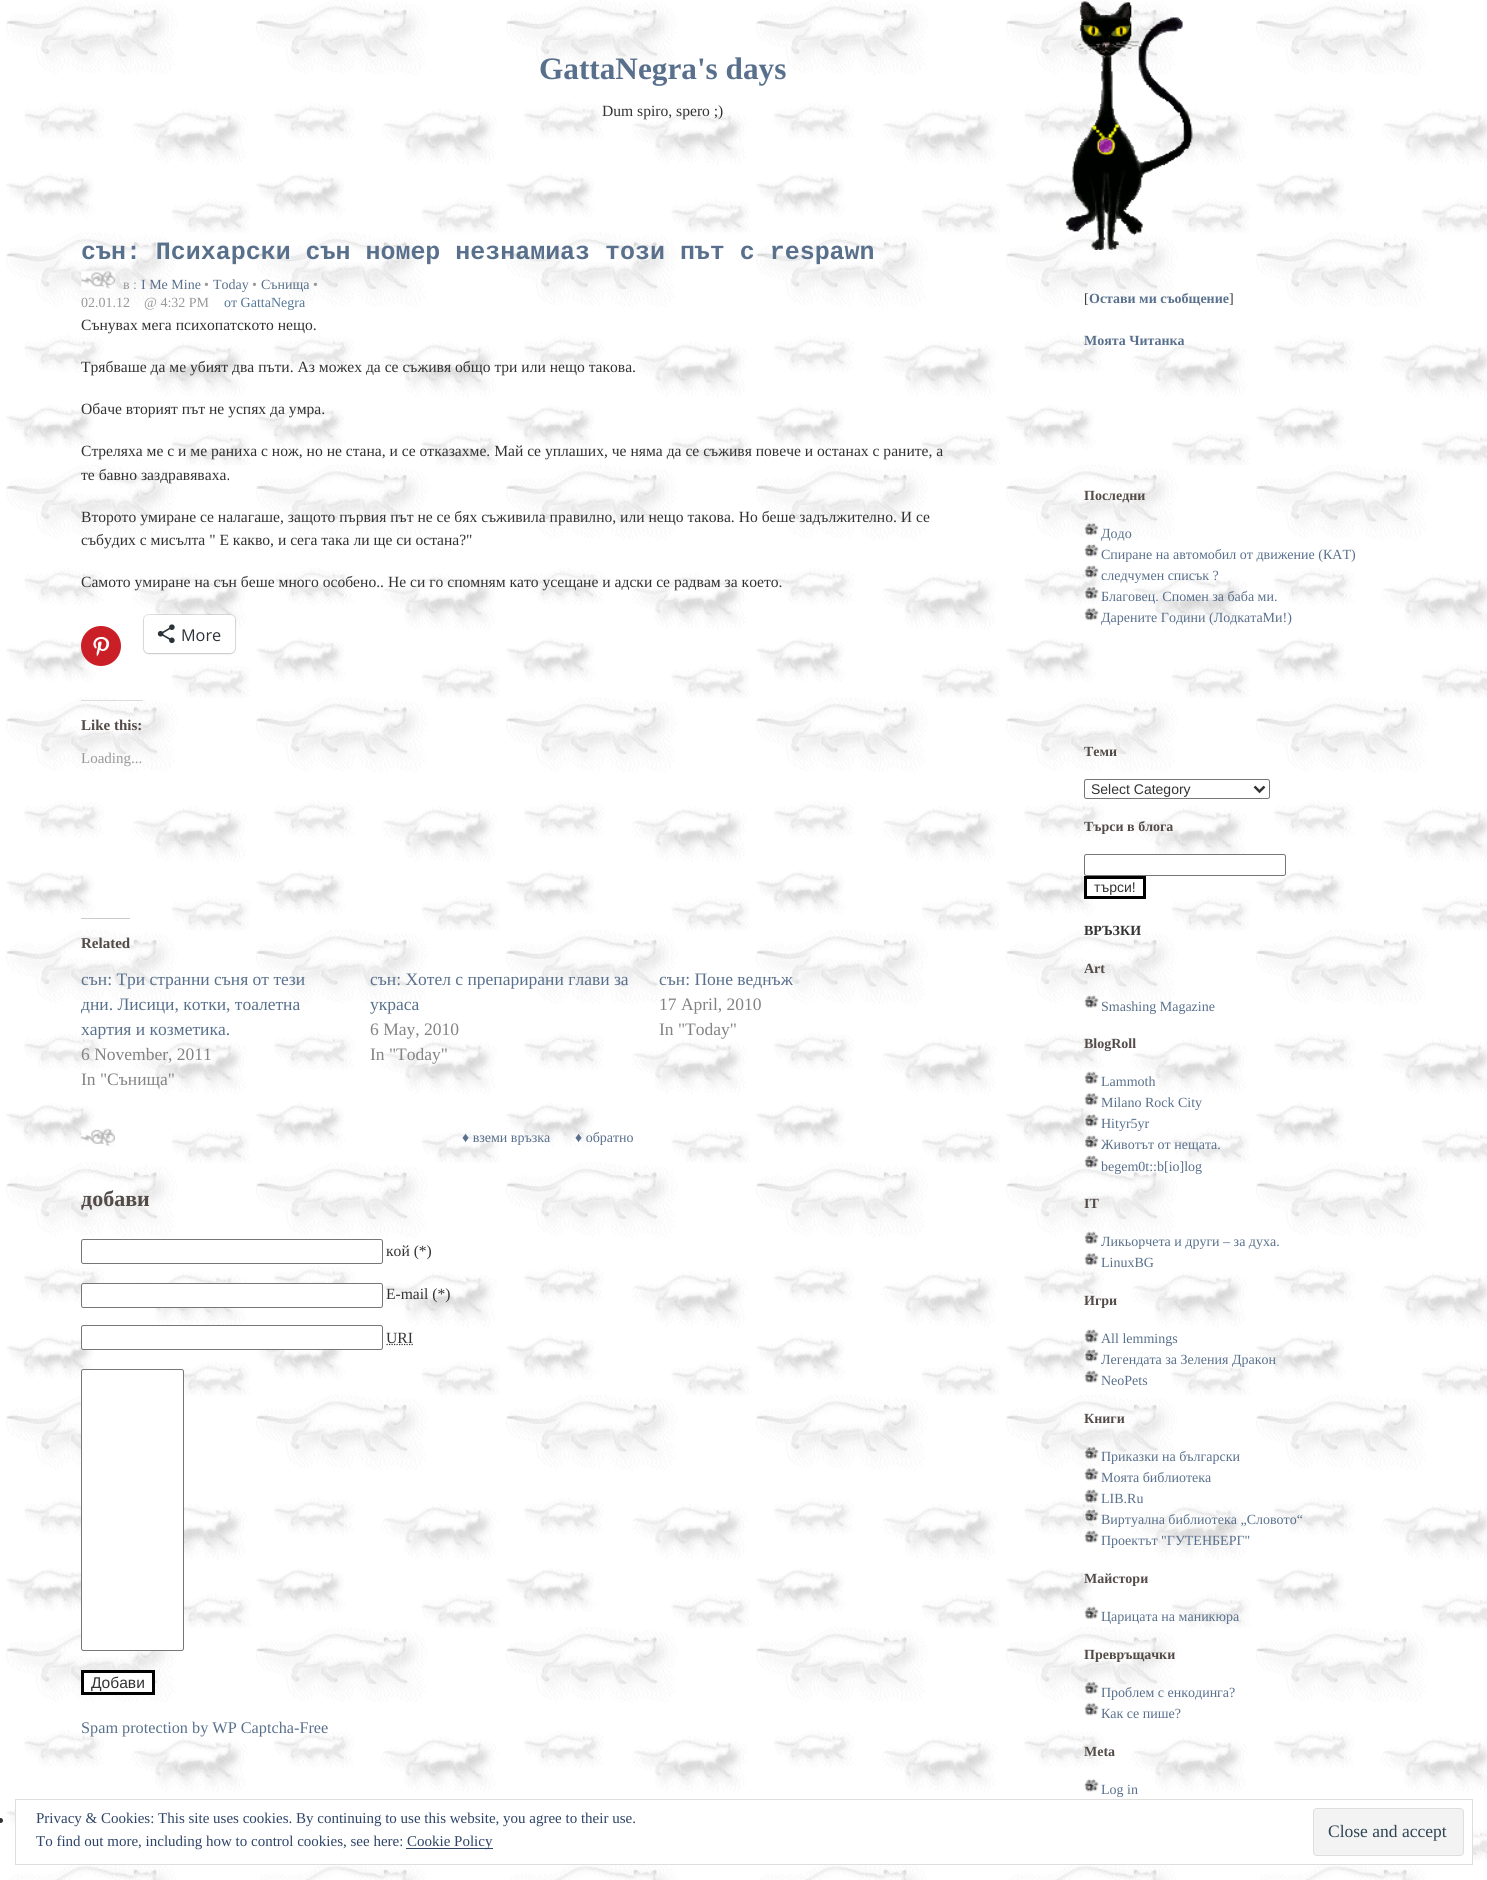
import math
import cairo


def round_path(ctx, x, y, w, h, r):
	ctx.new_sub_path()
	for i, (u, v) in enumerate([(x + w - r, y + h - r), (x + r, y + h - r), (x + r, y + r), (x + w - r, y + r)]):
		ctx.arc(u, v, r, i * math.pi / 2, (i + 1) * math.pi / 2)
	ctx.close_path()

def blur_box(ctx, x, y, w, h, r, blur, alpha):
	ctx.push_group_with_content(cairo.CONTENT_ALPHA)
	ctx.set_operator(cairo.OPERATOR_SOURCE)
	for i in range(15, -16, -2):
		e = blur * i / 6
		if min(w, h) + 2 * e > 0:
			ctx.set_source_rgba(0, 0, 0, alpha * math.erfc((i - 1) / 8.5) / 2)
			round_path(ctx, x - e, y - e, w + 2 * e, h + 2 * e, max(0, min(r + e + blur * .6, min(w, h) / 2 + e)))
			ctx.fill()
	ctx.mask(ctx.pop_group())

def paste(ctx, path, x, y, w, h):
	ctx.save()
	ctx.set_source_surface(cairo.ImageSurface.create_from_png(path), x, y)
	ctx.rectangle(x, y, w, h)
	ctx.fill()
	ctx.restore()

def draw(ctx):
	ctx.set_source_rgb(1, 1, 1)
	ctx.paint()
	paste(ctx, 'media/1.png', 0, 0, 1487, 1880)
	paste(ctx, 'media/2.png', 1066, 1, 127, 249)
	ctx.select_font_face('Liberation Serif', cairo.FONT_SLANT_NORMAL, cairo.FONT_WEIGHT_BOLD)
	ctx.set_font_size(31.25)
	ctx.set_source_rgb(0.349, 0.439, 0.549)
	ctx.move_to(539, 79)
	ctx.show_text('GattaNegra\'s days')
	ctx.select_font_face('Liberation Serif')
	ctx.set_font_size(15.6)
	ctx.set_source_rgb(0.2, 0.2, 0.2)
	ctx.move_to(602, 116)
	ctx.show_text('Dum spiro, spero ;)')
	ctx.select_font_face('Liberation Mono', cairo.FONT_SLANT_NORMAL, cairo.FONT_WEIGHT_BOLD)
	ctx.set_font_size(24.95)
	ctx.set_source_rgb(0.349, 0.439, 0.549)
	ctx.move_to(81, 259)
	ctx.show_text('сън: Психарски сън номер незнамиаз този път с respawn')
	paste(ctx, 'media/3.png', 81, 271, 34, 19)
	ctx.select_font_face('Liberation Serif')
	ctx.set_font_size(14)
	ctx.set_source_rgb(0.6, 0.6, 0.6)
	ctx.move_to(123, 289)
	ctx.show_text('в :')
	ctx.set_source_rgb(0.349, 0.439, 0.549)
	ctx.move_to(141, 289)
	ctx.show_text('I Me Mine')
	ctx.set_source_rgb(0.6, 0.6, 0.6)
	ctx.move_to(204, 289)
	ctx.show_text('•')
	ctx.set_source_rgb(0.349, 0.439, 0.549)
	ctx.move_to(213, 289)
	ctx.show_text('Today')
	ctx.set_source_rgb(0.6, 0.6, 0.6)
	ctx.move_to(252, 289)
	ctx.show_text('•')
	ctx.set_source_rgb(0.349, 0.439, 0.549)
	ctx.move_to(261, 289)
	ctx.show_text('Сънища')
	ctx.set_source_rgb(0.6, 0.6, 0.6)
	for x, y, s in [
		(313, 289, '•'),
		(81, 307, '02.01.12'),
		(144, 307, '@ 4:32 PM'),
	]:
		ctx.move_to(x, y)
		ctx.show_text(s)
	ctx.set_source_rgb(0.333, 0.467, 0.6)
	ctx.move_to(224, 307)
	ctx.show_text('от GattaNegra')
	ctx.set_font_size(15.6)
	ctx.set_source_rgb(0.2, 0.2, 0.2)
	for x, y, s in [
		(81, 330, 'Сънувах мега психопатското нещо.'),
		(81, 372, 'Трябваше да ме убият два пъти. Аз можех да се съживя общо три или нещо такова.'),
		(81, 414, 'Обаче вторият път не успях да умра.'),
		(81, 456, 'Стреляха ме с и ме раниха с нож, но не стана, и се отказахме. Май се уплаших, че няма да се съживя повече и останах с раните, а'),
		(81, 480, 'те бавно заздравяваха.'),
		(81, 522, 'Второто умиране се налагаше, защото първия път не се бях съживила правилно, или нещо такова. Но беше задължително. И се'),
		(81, 545, 'събудих с мисълта " Е какво, и сега така ли ще си остана?"'),
		(81, 587, 'Самото умиране на сън беше много особено.. Не си го спомням като усещане и адски се радвам за което.'),
	]:
		ctx.move_to(x, y)
		ctx.show_text(s)
	ctx.set_source_rgb(0.792, 0.122, 0.153)
	ctx.new_path()
	ctx.arc(101, 646, 20, 0, 2 * math.pi)
	ctx.fill()
	paste(ctx, 'media/4.png', 93, 636, 17, 21)
	round_path(ctx, 143.5, 614.5, 92, 39, 5.5)
	ctx.set_source_rgba(0, 0, 0, 0.12)
	ctx.set_line_width(1)
	ctx.stroke()
	ctx.set_source_rgb(0, 0, 0)
	blur_box(ctx, 144, 616, 91, 38, 5, 1, 0.12)
	ctx.set_source_rgb(1, 1, 1)
	round_path(ctx, 144, 615, 91, 38, 5)
	ctx.fill()
	paste(ctx, 'media/5.png', 157, 624, 18, 20)
	ctx.select_font_face('Open Sans')
	ctx.set_font_size(16.25)
	ctx.set_source_rgb(0.173, 0.2, 0.22)
	ctx.move_to(181, 641)
	ctx.show_text('More')
	ctx.set_source_rgb(0.863, 0.863, 0.871)
	ctx.rectangle(81, 700, 62, 1)
	ctx.fill()
	ctx.select_font_face('Liberation Serif', cairo.FONT_SLANT_NORMAL, cairo.FONT_WEIGHT_BOLD)
	ctx.set_font_size(15)
	ctx.set_source_rgb(0.325, 0.294, 0.282)
	ctx.move_to(81, 730)
	ctx.show_text('Like this:')
	ctx.select_font_face('Liberation Serif')
	ctx.set_source_rgb(0.6, 0.6, 0.6)
	ctx.move_to(81, 763)
	ctx.show_text('Loading...')
	ctx.set_source_rgb(0.8, 0.8, 0.8)
	ctx.rectangle(81, 918, 49, 1)
	ctx.fill()
	ctx.select_font_face('Liberation Serif', cairo.FONT_SLANT_NORMAL, cairo.FONT_WEIGHT_BOLD)
	ctx.set_source_rgb(0.325, 0.294, 0.282)
	ctx.move_to(81, 948)
	ctx.show_text('Related')
	ctx.select_font_face('Liberation Serif')
	ctx.set_font_size(17.5)
	ctx.set_source_rgb(0.349, 0.439, 0.549)
	for x, y, s in [
		(81, 985, 'сън: Три странни съня от тези'),
		(81, 1010, 'дни. Лисици, котки, тоалетна'),
		(81, 1035, 'хартия и козметика.'),
	]:
		ctx.move_to(x, y)
		ctx.show_text(s)
	ctx.set_source_rgb(0.514, 0.514, 0.514)
	ctx.move_to(81, 1060)
	ctx.show_text('6 November, 2011')
	ctx.move_to(81, 1085)
	ctx.show_text('In "Сънища"')
	ctx.set_source_rgb(0.349, 0.439, 0.549)
	ctx.move_to(370, 985)
	ctx.show_text('сън: Хотел с препарирани глави за')
	ctx.move_to(370, 1010)
	ctx.show_text('украса')
	ctx.set_source_rgb(0.514, 0.514, 0.514)
	ctx.move_to(370, 1035)
	ctx.show_text('6 May, 2010')
	ctx.move_to(370, 1060)
	ctx.show_text('In "Today"')
	ctx.set_source_rgb(0.349, 0.439, 0.549)
	ctx.move_to(659, 985)
	ctx.show_text('сън: Поне веднъж')
	ctx.set_source_rgb(0.514, 0.514, 0.514)
	ctx.move_to(659, 1010)
	ctx.show_text('17 April, 2010')
	ctx.move_to(659, 1035)
	ctx.show_text('In "Today"')
	paste(ctx, 'media/6.png', 81, 1128, 34, 19)
	ctx.set_font_size(14)
	ctx.set_source_rgb(0.349, 0.439, 0.549)
	ctx.move_to(462, 1142)
	ctx.show_text('♦ вземи връзка')
	ctx.move_to(575, 1142)
	ctx.show_text('♦ обратно')
	ctx.select_font_face('Liberation Serif', cairo.FONT_SLANT_NORMAL, cairo.FONT_WEIGHT_BOLD)
	ctx.set_font_size(22)
	ctx.set_source_rgb(0.325, 0.294, 0.282)
	ctx.move_to(81, 1206)
	ctx.show_text('добави')
	round_path(ctx, 81.5, 1239.5, 301, 24, 2)
	ctx.set_source_rgb(0.463, 0.463, 0.463)
	ctx.stroke()
	ctx.select_font_face('Liberation Serif')
	ctx.set_font_size(15.6)
	ctx.set_source_rgb(0.2, 0.2, 0.2)
	ctx.move_to(386, 1256)
	ctx.show_text('кой (*)')
	ctx.set_source_rgb(1, 1, 1)
	round_path(ctx, 81.5, 1283.5, 301, 24, 2)
	ctx.fill_preserve()
	ctx.set_source_rgb(0.463, 0.463, 0.463)
	ctx.stroke()
	ctx.set_source_rgb(0.2, 0.2, 0.2)
	ctx.move_to(386, 1299)
	ctx.show_text('E-mail (*)')
	ctx.set_source_rgb(1, 1, 1)
	round_path(ctx, 81.5, 1325.5, 301, 24, 2)
	ctx.fill_preserve()
	ctx.set_source_rgb(0.463, 0.463, 0.463)
	ctx.stroke()
	ctx.new_path()
	ctx.move_to(386.5, 1344.5)
	ctx.line_to(413.5, 1344.5)
	ctx.set_source_rgb(0.2, 0.2, 0.2)
	ctx.set_line_width(1.2)
	ctx.set_dash([1.25, 1.25])
	ctx.stroke()
	ctx.move_to(386, 1343)
	ctx.show_text('URI')
	ctx.set_source_rgb(1, 1, 1)
	round_path(ctx, 81.5, 1369.5, 102, 281, 2)
	ctx.fill_preserve()
	ctx.set_source_rgb(0.463, 0.463, 0.463)
	ctx.set_line_width(1)
	ctx.set_dash([])
	ctx.stroke()
	ctx.set_source_rgb(1, 1, 1)
	ctx.rectangle(82.5, 1671.5, 71, 22)
	ctx.fill_preserve()
	ctx.set_source_rgb(0, 0, 0)
	ctx.set_line_width(3)
	ctx.stroke()
	ctx.select_font_face('Liberation Sans')
	ctx.set_source_rgb(0.2, 0.2, 0.2)
	ctx.move_to(91, 1688)
	ctx.show_text('Добави')
	ctx.select_font_face('Liberation Serif')
	ctx.set_font_size(16.25)
	ctx.set_source_rgb(0.349, 0.439, 0.549)
	ctx.move_to(81, 1733)
	ctx.show_text('Spam protection by WP Captcha-Free')
	ctx.set_font_size(14)
	ctx.set_source_rgb(0.2, 0.2, 0.2)
	ctx.move_to(1084, 303)
	ctx.show_text('[')
	ctx.select_font_face('Liberation Serif', cairo.FONT_SLANT_NORMAL, cairo.FONT_WEIGHT_BOLD)
	ctx.set_source_rgb(0.349, 0.439, 0.549)
	ctx.move_to(1089, 303)
	ctx.show_text('Остави ми съобщение')
	ctx.select_font_face('Liberation Serif')
	ctx.set_source_rgb(0.2, 0.2, 0.2)
	ctx.move_to(1229, 303)
	ctx.show_text(']')
	ctx.select_font_face('Liberation Serif', cairo.FONT_SLANT_NORMAL, cairo.FONT_WEIGHT_BOLD)
	ctx.set_source_rgb(0.349, 0.439, 0.549)
	ctx.move_to(1084, 345)
	ctx.show_text('Моята Читанка')
	ctx.set_source_rgb(0.325, 0.294, 0.282)
	ctx.move_to(1084, 500)
	ctx.show_text('Последни')
	paste(ctx, 'media/7.png', 1084, 522, 15, 14)
	ctx.select_font_face('Liberation Serif')
	ctx.set_source_rgb(0.349, 0.439, 0.549)
	ctx.move_to(1101, 538)
	ctx.show_text('Додо')
	paste(ctx, 'media/8.png', 1084, 543, 15, 14)
	ctx.move_to(1101, 559)
	ctx.show_text('Спиране на автомобил от движение (КАТ)')
	paste(ctx, 'media/9.png', 1084, 565, 15, 14)
	ctx.move_to(1101, 580)
	ctx.show_text('следчумен списък ?')
	paste(ctx, 'media/10.png', 1084, 586, 15, 13)
	ctx.move_to(1101, 601)
	ctx.show_text('Благовец. Спомен за баба ми.')
	paste(ctx, 'media/11.png', 1084, 607, 15, 14)
	ctx.move_to(1101, 622)
	ctx.show_text('Дарените Години (ЛодкатаМи!)')
	ctx.select_font_face('Liberation Serif', cairo.FONT_SLANT_NORMAL, cairo.FONT_WEIGHT_BOLD)
	ctx.set_source_rgb(0.325, 0.294, 0.282)
	ctx.move_to(1084, 756)
	ctx.show_text('Теми')
	round_path(ctx, 1084.5, 779.5, 185, 19, 2)
	ctx.set_source_rgb(0.463, 0.463, 0.463)
	ctx.set_line_width(1)
	ctx.stroke()
	ctx.new_path()
	ctx.move_to(1254.5, 786.5)
	ctx.line_to(1259.5, 791.5)
	ctx.line_to(1264.5, 786.5)
	ctx.set_source_rgb(0.2, 0.2, 0.2)
	ctx.set_line_width(2.5)
	ctx.stroke()
	ctx.select_font_face('Liberation Sans')
	ctx.move_to(1091, 794)
	ctx.show_text('Select Category')
	ctx.select_font_face('Liberation Serif', cairo.FONT_SLANT_NORMAL, cairo.FONT_WEIGHT_BOLD)
	ctx.set_source_rgb(0.325, 0.294, 0.282)
	ctx.move_to(1084, 831)
	ctx.show_text('Търси в блога')
	ctx.set_source_rgb(1, 1, 1)
	round_path(ctx, 1084.5, 854.5, 201, 21, 2)
	ctx.fill_preserve()
	ctx.set_source_rgb(0.463, 0.463, 0.463)
	ctx.set_line_width(1)
	ctx.stroke()
	ctx.set_source_rgb(1, 1, 1)
	ctx.rectangle(1087, 879, 7, 16)
	ctx.fill()
	ctx.rectangle(1085.5, 877.5, 59, 20)
	ctx.set_source_rgb(0, 0, 0)
	ctx.set_line_width(3)
	ctx.stroke()
	ctx.select_font_face('Liberation Sans')
	ctx.set_source_rgb(0.2, 0.2, 0.2)
	ctx.move_to(1094, 892)
	ctx.show_text('търси!')
	ctx.select_font_face('Liberation Serif', cairo.FONT_SLANT_NORMAL, cairo.FONT_WEIGHT_BOLD)
	ctx.move_to(1084, 935)
	ctx.show_text('ВРЪЗКИ')
	ctx.set_source_rgb(0.325, 0.294, 0.282)
	ctx.move_to(1084, 973)
	ctx.show_text('Art')
	paste(ctx, 'media/12.png', 1084, 995, 15, 13)
	ctx.select_font_face('Liberation Serif')
	ctx.set_source_rgb(0.349, 0.439, 0.549)
	ctx.move_to(1101, 1011)
	ctx.show_text('Smashing Magazine')
	ctx.select_font_face('Liberation Serif', cairo.FONT_SLANT_NORMAL, cairo.FONT_WEIGHT_BOLD)
	ctx.set_source_rgb(0.325, 0.294, 0.282)
	ctx.move_to(1084, 1048)
	ctx.show_text('BlogRoll')
	paste(ctx, 'media/13.png', 1084, 1071, 15, 14)
	ctx.select_font_face('Liberation Serif')
	ctx.set_source_rgb(0.349, 0.439, 0.549)
	ctx.move_to(1101, 1086)
	ctx.show_text('Lammoth')
	paste(ctx, 'media/11.png', 1084, 1092, 15, 14)
	ctx.move_to(1101, 1107)
	ctx.show_text('Milano Rock City')
	paste(ctx, 'media/14.png', 1084, 1113, 15, 14)
	ctx.move_to(1101, 1128)
	ctx.show_text('Hityr5yr')
	paste(ctx, 'media/15.png', 1084, 1135, 15, 13)
	ctx.move_to(1101, 1149)
	ctx.show_text('Животът от нещата.')
	paste(ctx, 'media/16.png', 1084, 1155, 15, 13)
	ctx.move_to(1101, 1171)
	ctx.show_text('begem0t::b[io]log')
	ctx.select_font_face('Liberation Serif', cairo.FONT_SLANT_NORMAL, cairo.FONT_WEIGHT_BOLD)
	ctx.set_source_rgb(0.325, 0.294, 0.282)
	ctx.move_to(1084, 1208)
	ctx.show_text('IT')
	paste(ctx, 'media/17.png', 1084, 1231, 15, 14)
	ctx.select_font_face('Liberation Serif')
	ctx.set_source_rgb(0.349, 0.439, 0.549)
	ctx.move_to(1101, 1246)
	ctx.show_text('Ликьорчета и други – за духа.')
	paste(ctx, 'media/11.png', 1084, 1252, 15, 14)
	ctx.move_to(1101, 1267)
	ctx.show_text('LinuxBG')
	ctx.select_font_face('Liberation Serif', cairo.FONT_SLANT_NORMAL, cairo.FONT_WEIGHT_BOLD)
	ctx.set_source_rgb(0.325, 0.294, 0.282)
	ctx.move_to(1084, 1305)
	ctx.show_text('Игри')
	paste(ctx, 'media/18.png', 1084, 1328, 15, 16)
	ctx.select_font_face('Liberation Serif')
	ctx.set_source_rgb(0.349, 0.439, 0.549)
	ctx.move_to(1101, 1343)
	ctx.show_text('All lemmings')
	paste(ctx, 'media/19.png', 1084, 1349, 15, 13)
	ctx.move_to(1101, 1364)
	ctx.show_text('Легендата за Зеления Дракон')
	paste(ctx, 'media/20.png', 1084, 1370, 15, 13)
	ctx.move_to(1101, 1385)
	ctx.show_text('NeoPets')
	ctx.select_font_face('Liberation Serif', cairo.FONT_SLANT_NORMAL, cairo.FONT_WEIGHT_BOLD)
	ctx.set_source_rgb(0.325, 0.294, 0.282)
	ctx.move_to(1084, 1423)
	ctx.show_text('Книги')
	paste(ctx, 'media/21.png', 1084, 1446, 15, 13)
	ctx.select_font_face('Liberation Serif')
	ctx.set_source_rgb(0.349, 0.439, 0.549)
	ctx.move_to(1101, 1461)
	ctx.show_text('Приказки на български')
	paste(ctx, 'media/22.png', 1084, 1467, 15, 14)
	ctx.move_to(1101, 1482)
	ctx.show_text('Моята библиотека')
	paste(ctx, 'media/23.png', 1084, 1488, 15, 15)
	ctx.move_to(1101, 1503)
	ctx.show_text('LIB.Ru')
	paste(ctx, 'media/24.png', 1084, 1509, 15, 14)
	ctx.move_to(1101, 1524)
	ctx.show_text('Виртуална библиотека „Словото“')
	paste(ctx, 'media/25.png', 1084, 1530, 15, 13)
	ctx.move_to(1101, 1545)
	ctx.show_text('Проектът "ГУТЕНБЕРГ"')
	ctx.select_font_face('Liberation Serif', cairo.FONT_SLANT_NORMAL, cairo.FONT_WEIGHT_BOLD)
	ctx.set_source_rgb(0.325, 0.294, 0.282)
	ctx.move_to(1084, 1583)
	ctx.show_text('Майстори')
	paste(ctx, 'media/26.png', 1084, 1606, 15, 14)
	ctx.select_font_face('Liberation Serif')
	ctx.set_source_rgb(0.349, 0.439, 0.549)
	ctx.move_to(1101, 1621)
	ctx.show_text('Царицата на маникюра')
	ctx.select_font_face('Liberation Serif', cairo.FONT_SLANT_NORMAL, cairo.FONT_WEIGHT_BOLD)
	ctx.set_source_rgb(0.325, 0.294, 0.282)
	ctx.move_to(1084, 1659)
	ctx.show_text('Превръщачки')
	paste(ctx, 'media/27.png', 1084, 1681, 15, 13)
	ctx.select_font_face('Liberation Serif')
	ctx.set_source_rgb(0.349, 0.439, 0.549)
	ctx.move_to(1101, 1697)
	ctx.show_text('Проблем с енкодинга?')
	paste(ctx, 'media/11.png', 1084, 1702, 15, 14)
	ctx.move_to(1101, 1718)
	ctx.show_text('Как се пише?')
	ctx.select_font_face('Liberation Serif', cairo.FONT_SLANT_NORMAL, cairo.FONT_WEIGHT_BOLD)
	ctx.set_source_rgb(0.325, 0.294, 0.282)
	ctx.move_to(1084, 1756)
	ctx.show_text('Meta')
	paste(ctx, 'media/8.png', 1084, 1778, 15, 14)
	ctx.select_font_face('Liberation Serif')
	ctx.set_source_rgb(0.349, 0.439, 0.549)
	ctx.move_to(1101, 1794)
	ctx.show_text('Log in')
	ctx.set_source_rgb(0.2, 0.2, 0.2)
	ctx.new_path()
	ctx.arc(0.5, 1820.5, 2.5, 0, 2 * math.pi)
	ctx.fill()
	ctx.set_source_rgb(1, 1, 1)
	ctx.rectangle(15.5, 1799.5, 1457, 65)
	ctx.fill_preserve()
	ctx.set_source_rgb(0.871, 0.871, 0.871)
	ctx.set_line_width(1)
	ctx.stroke()
	ctx.set_font_size(15)
	ctx.set_source_rgb(0.18, 0.267, 0.404)
	ctx.move_to(36, 1823)
	ctx.show_text('Privacy & Cookies: This site uses cookies. By continuing to use this website, you agree to their use.')
	ctx.set_source_rgb(0.953, 0.953, 0.953)
	round_path(ctx, 1313.5, 1808.5, 150, 47, 3.5)
	ctx.fill_preserve()
	ctx.set_source_rgb(0.871, 0.871, 0.871)
	ctx.stroke()
	ctx.set_font_size(17.5)
	ctx.set_source_rgb(0.18, 0.267, 0.325)
	ctx.move_to(1328, 1837)
	ctx.show_text('Close and accept')
	ctx.set_font_size(15)
	ctx.set_source_rgb(0.18, 0.267, 0.404)
	ctx.move_to(36, 1846)
	ctx.show_text('To find out more, including how to control cookies, see here:')
	ctx.rectangle(406, 1848, 87, 1)
	ctx.fill()
	ctx.move_to(407, 1846)
	ctx.show_text('Cookie Policy')


surface = cairo.ImageSurface(cairo.FORMAT_RGB24, 1487, 1880)
ctx = cairo.Context(surface)
options = cairo.FontOptions()
options.set_hint_metrics(cairo.HINT_METRICS_OFF)
options.set_hint_style(cairo.HINT_STYLE_NONE)
ctx.set_font_options(options)
ctx.set_miter_limit(4)
draw(ctx)
surface.write_to_png('image.png')
